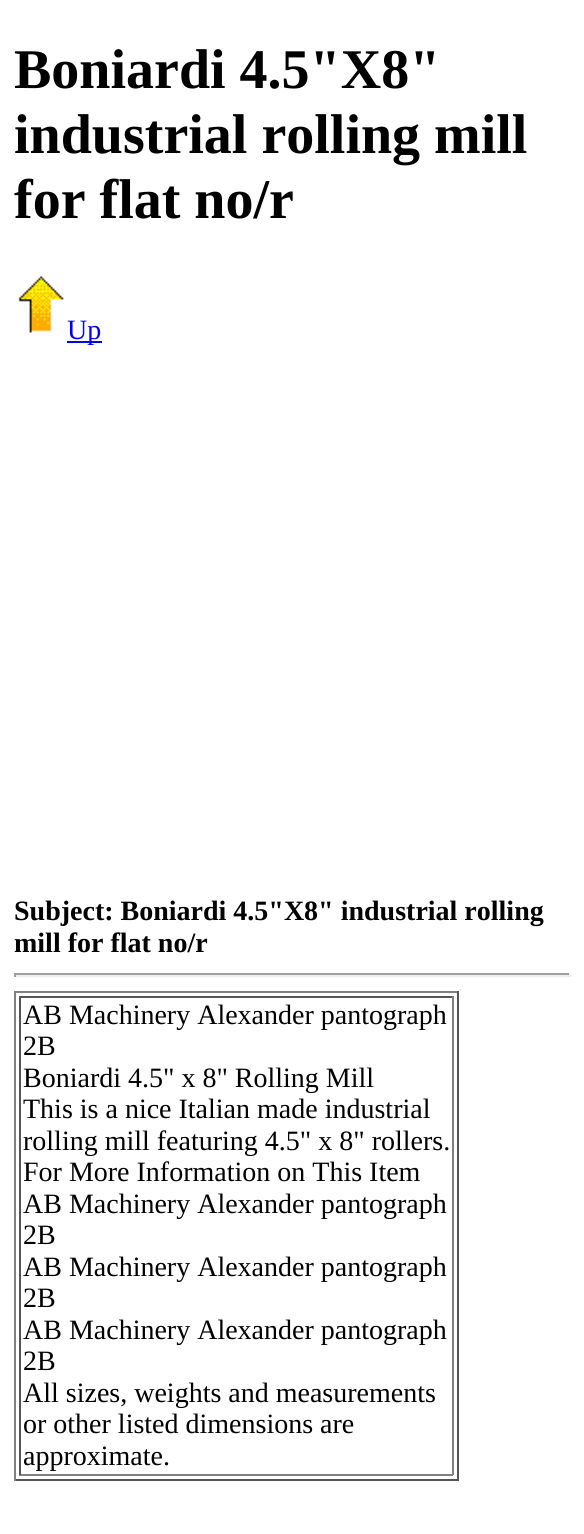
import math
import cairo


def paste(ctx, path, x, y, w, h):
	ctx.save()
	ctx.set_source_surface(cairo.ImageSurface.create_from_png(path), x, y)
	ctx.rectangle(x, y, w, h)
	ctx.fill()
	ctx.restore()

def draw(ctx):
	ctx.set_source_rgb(1, 1, 1)
	ctx.paint()
	ctx.select_font_face('Liberation Serif', cairo.FONT_SLANT_NORMAL, cairo.FONT_WEIGHT_BOLD)
	ctx.set_font_size(56)
	ctx.set_source_rgb(0, 0, 0)
	for x, y, s in [
		(14, 88, 'Boniardi 4.5"X8"'),
		(14, 153, 'industrial rolling mill'),
		(14, 218, 'for flat no/r'),
	]:
		ctx.move_to(x, y)
		ctx.show_text(s)
	paste(ctx, 'media/1.png', 18, 276, 46, 57)
	ctx.set_source_rgb(0, 0, 0.933)
	ctx.rectangle(67, 341, 35, 2)
	ctx.fill()
	ctx.select_font_face('Liberation Serif')
	ctx.set_font_size(28)
	ctx.move_to(67, 339)
	ctx.show_text('Up')
	ctx.select_font_face('Liberation Serif', cairo.FONT_SLANT_NORMAL, cairo.FONT_WEIGHT_BOLD)
	ctx.set_source_rgb(0, 0, 0)
	ctx.move_to(14, 920)
	ctx.show_text('Subject: Boniardi 4.5"X8" industrial rolling')
	ctx.move_to(14, 952)
	ctx.show_text('mill for flat no/r')
	ctx.set_source_rgb(0.624, 0.624, 0.624)
	ctx.rectangle(14, 973, 557, 2)
	ctx.fill()
	ctx.set_source_rgb(0.933, 0.933, 0.933)
	ctx.rectangle(569, 973, 2, 4)
	ctx.rectangle(14, 975, 557, 2)
	ctx.fill()
	ctx.set_source_rgb(0.624, 0.624, 0.624)
	ctx.rectangle(14, 973, 2, 4)
	ctx.fill()
	ctx.set_source_rgb(0.502, 0.502, 0.502)
	ctx.rectangle(14, 991, 445, 2)
	ctx.fill()
	ctx.set_source_rgb(0.333, 0.333, 0.333)
	ctx.rectangle(457, 991, 2, 490)
	ctx.rectangle(14, 1479, 445, 2)
	ctx.fill()
	ctx.set_source_rgb(0.502, 0.502, 0.502)
	ctx.rectangle(14, 991, 2, 490)
	ctx.fill()
	ctx.set_source_rgb(0.333, 0.333, 0.333)
	ctx.rectangle(19, 996, 434, 2)
	ctx.fill()
	ctx.set_source_rgb(0.502, 0.502, 0.502)
	ctx.rectangle(452, 996, 2, 479)
	ctx.rectangle(19, 1474, 434, 2)
	ctx.fill()
	ctx.set_source_rgb(0.333, 0.333, 0.333)
	ctx.rectangle(19, 996, 2, 479)
	ctx.fill()
	ctx.select_font_face('Liberation Serif')
	ctx.set_source_rgb(0, 0, 0)
	for x, y, s in [
		(23, 1024, 'AB Machinery Alexander pantograph'),
		(23, 1055, '2B'),
		(23, 1087, 'Boniardi 4.5" x 8" Rolling Mill'),
		(23, 1118, 'This is a nice Italian made industrial'),
		(23, 1150, 'rolling mill featuring 4.5" x 8" rollers.'),
		(23, 1181, 'For More Information on This Item'),
		(23, 1213, 'AB Machinery Alexander pantograph'),
		(23, 1244, '2B'),
		(23, 1276, 'AB Machinery Alexander pantograph'),
		(23, 1307, '2B'),
		(23, 1339, 'AB Machinery Alexander pantograph'),
		(23, 1370, '2B'),
		(23, 1402, 'All sizes, weights and measurements'),
		(23, 1433, 'or other listed dimensions are'),
		(23, 1465, 'approximate.'),
	]:
		ctx.move_to(x, y)
		ctx.show_text(s)


surface = cairo.ImageSurface(cairo.FORMAT_RGB24, 584, 1534)
ctx = cairo.Context(surface)
options = cairo.FontOptions()
options.set_hint_metrics(cairo.HINT_METRICS_OFF)
options.set_hint_style(cairo.HINT_STYLE_NONE)
ctx.set_font_options(options)
ctx.set_miter_limit(4)
draw(ctx)
surface.write_to_png('image.png')
